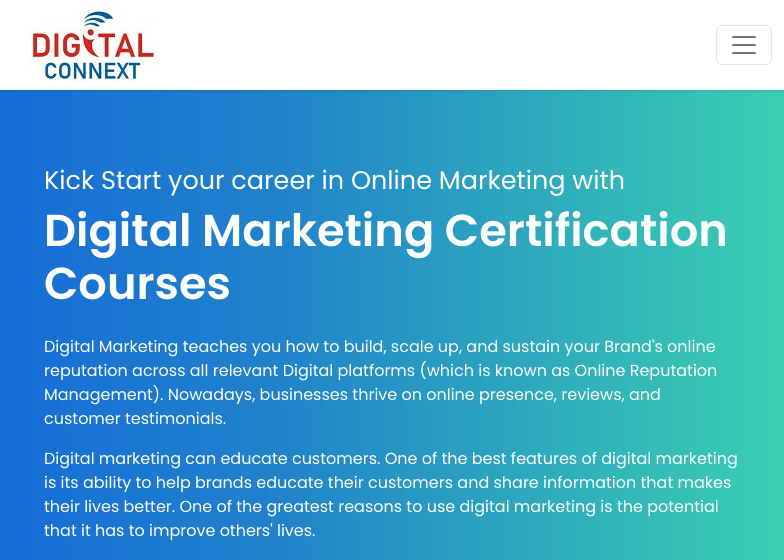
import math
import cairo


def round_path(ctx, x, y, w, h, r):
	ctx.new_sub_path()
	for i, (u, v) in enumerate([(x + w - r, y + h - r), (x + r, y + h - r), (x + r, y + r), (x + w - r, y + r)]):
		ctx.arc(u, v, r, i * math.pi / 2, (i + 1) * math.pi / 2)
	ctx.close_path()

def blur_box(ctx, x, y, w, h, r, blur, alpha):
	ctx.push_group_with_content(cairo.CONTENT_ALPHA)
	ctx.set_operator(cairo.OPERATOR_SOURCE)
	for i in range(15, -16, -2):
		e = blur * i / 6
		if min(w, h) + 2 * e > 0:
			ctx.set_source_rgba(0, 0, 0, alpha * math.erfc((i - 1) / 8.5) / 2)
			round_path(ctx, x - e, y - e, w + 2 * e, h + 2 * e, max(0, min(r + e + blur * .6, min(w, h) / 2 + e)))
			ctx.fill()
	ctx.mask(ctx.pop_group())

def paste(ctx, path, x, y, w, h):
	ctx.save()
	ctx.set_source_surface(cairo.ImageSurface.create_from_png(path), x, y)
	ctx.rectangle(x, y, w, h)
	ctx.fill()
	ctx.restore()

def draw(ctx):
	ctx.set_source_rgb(1, 1, 1)
	ctx.paint()
	gradient = cairo.LinearGradient(0, 374, 784, 374)
	gradient.add_color_stop_rgba(0, 0.082, 0.427, 0.843, 1)
	gradient.add_color_stop_rgba(0.35, 0.125, 0.51, 0.796, 1)
	gradient.add_color_stop_rgba(1, 0.227, 0.812, 0.694, 1)
	ctx.set_source(gradient)
	ctx.rectangle(0, 90, 784, 470)
	ctx.fill()
	ctx.save()
	ctx.rectangle(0, 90, 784, 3)
	ctx.clip()
	ctx.set_source_rgb(0, 0, 0)
	blur_box(ctx, 0, 2, 784, 90, 0, 2, 0.07)
	ctx.restore()
	paste(ctx, 'media/1.png', 28, 5, 128, 80)
	round_path(ctx, 716.5, 25.5, 55, 39, 5.5)
	ctx.set_source_rgb(0.902, 0.902, 0.902)
	ctx.set_line_width(1)
	ctx.stroke()
	paste(ctx, 'media/2.png', 732, 36, 24, 18)
	ctx.select_font_face('Poppins')
	ctx.set_font_size(25.5)
	ctx.set_source_rgb(1, 1, 1)
	ctx.move_to(44, 189)
	ctx.show_text('Kick Start your career in Online Marketing with')
	ctx.select_font_face('Poppins SemiBold')
	ctx.set_font_size(44.75)
	ctx.move_to(44, 246)
	ctx.show_text('Digital Marketing Certification')
	ctx.move_to(44, 299)
	ctx.show_text('Courses')
	ctx.select_font_face('Poppins')
	ctx.set_font_size(16)
	for x, y, s in [
		(44, 352, 'Digital Marketing teaches you how to build, scale up, and sustain your Brand\'s online'),
		(44, 376, 'reputation across all relevant Digital platforms (which is known as Online Reputation'),
		(44, 400, 'Management). Nowadays, businesses thrive on online presence, reviews, and'),
		(44, 424, 'customer testimonials.'),
		(44, 464, 'Digital marketing can educate customers. One of the best features of digital marketing'),
		(44, 488, 'is its ability to help brands educate their customers and share information that makes'),
		(44, 512, 'their lives better. One of the greatest reasons to use digital marketing is the potential'),
		(44, 536, 'that it has to improve others\' lives.'),
	]:
		ctx.move_to(x, y)
		ctx.show_text(s)


surface = cairo.ImageSurface(cairo.FORMAT_RGB24, 784, 560)
ctx = cairo.Context(surface)
options = cairo.FontOptions()
options.set_hint_metrics(cairo.HINT_METRICS_OFF)
options.set_hint_style(cairo.HINT_STYLE_NONE)
ctx.set_font_options(options)
ctx.set_miter_limit(4)
draw(ctx)
surface.write_to_png('image.png')
